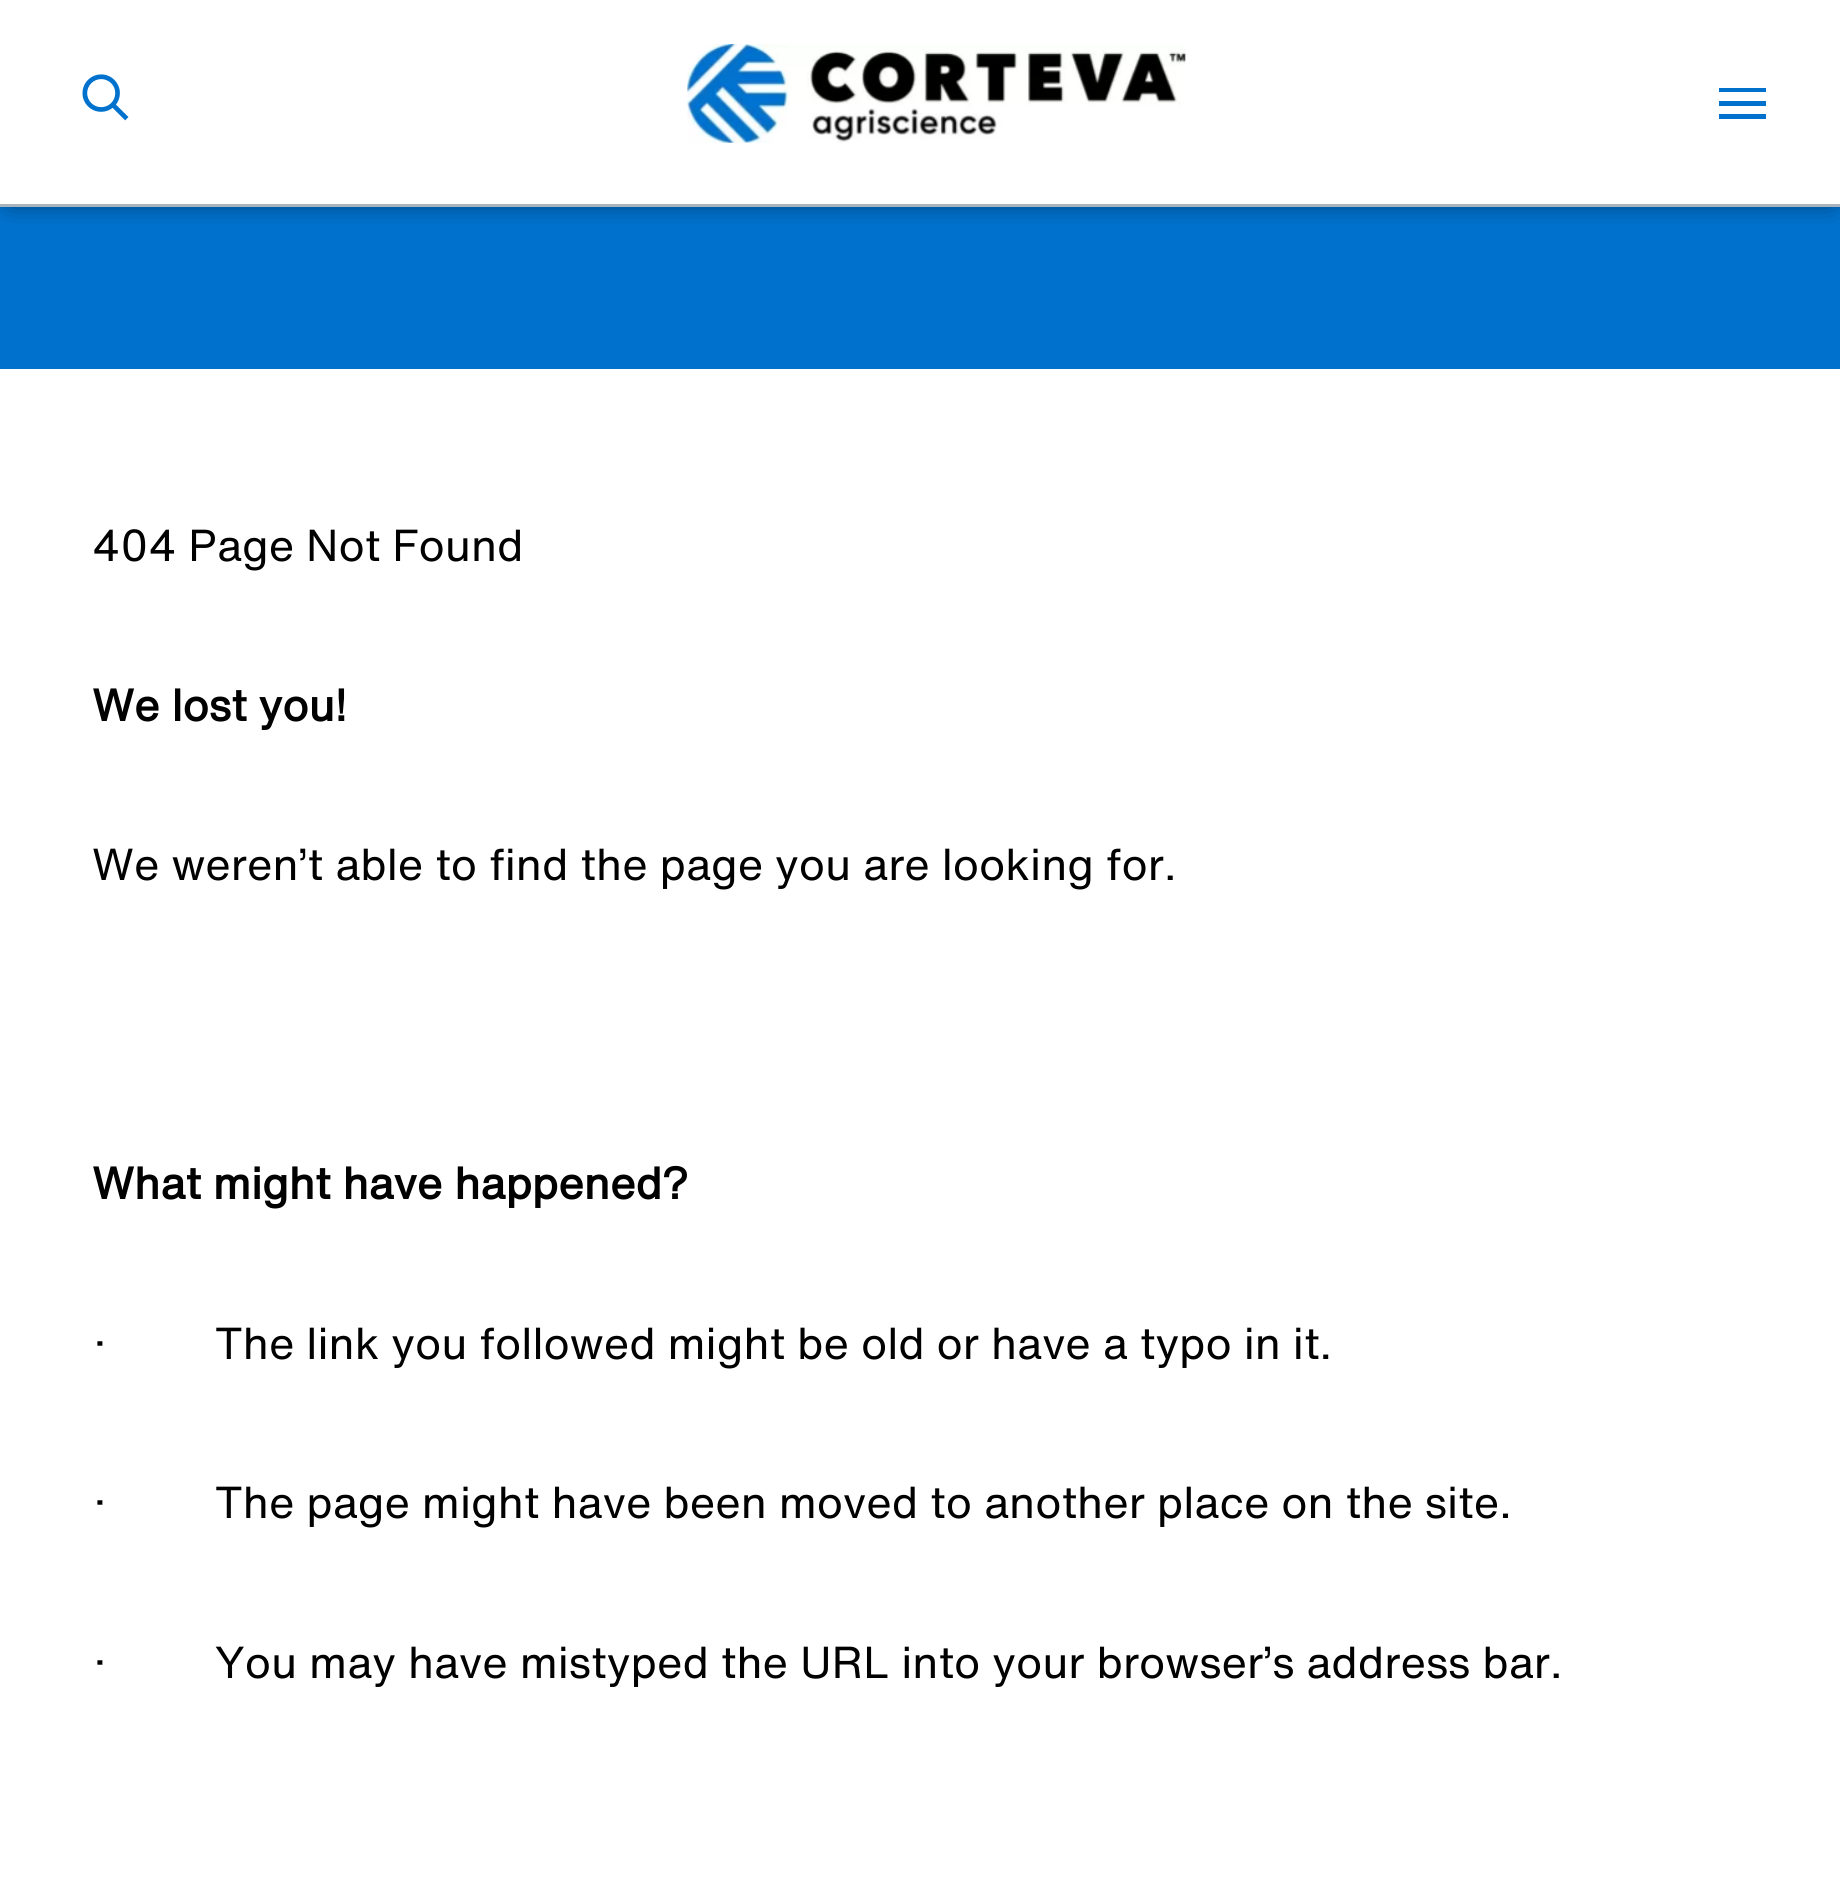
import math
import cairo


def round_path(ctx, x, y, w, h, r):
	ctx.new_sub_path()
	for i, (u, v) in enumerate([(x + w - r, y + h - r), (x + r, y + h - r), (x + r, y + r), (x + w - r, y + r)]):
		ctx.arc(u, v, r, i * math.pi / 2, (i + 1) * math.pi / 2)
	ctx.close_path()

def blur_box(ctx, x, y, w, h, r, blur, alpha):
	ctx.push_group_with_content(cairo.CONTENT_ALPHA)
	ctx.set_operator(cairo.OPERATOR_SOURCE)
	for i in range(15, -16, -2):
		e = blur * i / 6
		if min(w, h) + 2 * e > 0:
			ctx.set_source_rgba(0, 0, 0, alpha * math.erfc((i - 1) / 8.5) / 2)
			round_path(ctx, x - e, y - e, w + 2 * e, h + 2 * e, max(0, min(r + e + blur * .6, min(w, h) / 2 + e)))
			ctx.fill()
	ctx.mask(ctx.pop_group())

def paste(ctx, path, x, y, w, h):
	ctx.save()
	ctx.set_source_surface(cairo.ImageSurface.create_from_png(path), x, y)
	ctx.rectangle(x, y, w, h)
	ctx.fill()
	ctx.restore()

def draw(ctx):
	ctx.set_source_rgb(1, 1, 1)
	ctx.paint()
	ctx.set_source_rgb(0, 0.447, 0.808)
	ctx.rectangle(0, 207, 1840, 162)
	ctx.fill()
	ctx.save()
	ctx.rectangle(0, 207, 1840, 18)
	ctx.clip()
	ctx.set_source_rgb(0, 0, 0)
	blur_box(ctx, 11, 14, 1821, 184, 0, 14, 0.75)
	ctx.restore()
	ctx.set_source_rgb(0.663, 0.702, 0.741)
	ctx.rectangle(0, 204, 1840, 3)
	ctx.fill()
	paste(ctx, 'media/1.png', 82, 74, 47, 47)
	paste(ctx, 'media/2.png', 687, 44, 499, 99)
	ctx.set_source_rgb(0, 0.447, 0.808)
	ctx.new_path()
	ctx.move_to(1766, 88)
	ctx.line_to(1719, 88)
	ctx.line_to(1719, 92)
	ctx.line_to(1766, 92)
	ctx.close_path()
	ctx.move_to(1766, 101)
	ctx.line_to(1719, 101)
	ctx.line_to(1719, 106)
	ctx.line_to(1766, 106)
	ctx.close_path()
	ctx.move_to(1766, 114)
	ctx.line_to(1719, 114)
	ctx.line_to(1719, 119)
	ctx.line_to(1766, 119)
	ctx.close_path()
	ctx.fill()
	ctx.select_font_face('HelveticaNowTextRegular')
	ctx.set_font_size(44)
	ctx.set_source_rgb(0, 0, 0)
	ctx.move_to(92, 561)
	ctx.show_text('404 Page Not Found')
	ctx.select_font_face('HelveticaNowTextRegular', cairo.FONT_SLANT_NORMAL, cairo.FONT_WEIGHT_BOLD)
	ctx.move_to(92, 721)
	ctx.show_text('We lost you!')
	ctx.select_font_face('HelveticaNowTextRegular')
	ctx.move_to(92, 880)
	ctx.show_text('We weren’t able to find the page you are looking for.')
	ctx.select_font_face('HelveticaNowTextRegular', cairo.FONT_SLANT_NORMAL, cairo.FONT_WEIGHT_BOLD)
	ctx.move_to(92, 1199)
	ctx.show_text('What might have happened?')
	ctx.select_font_face('HelveticaNowTextRegular')
	for x, y, s in [
		(92, 1359, '·         The link you followed might be old or have a typo in it.'),
		(92, 1518, '·         The page might have been moved to another place on the site.'),
		(92, 1678, '·         You may have mistyped the URL into your browser’s address bar.'),
	]:
		ctx.move_to(x, y)
		ctx.show_text(s)


surface = cairo.ImageSurface(cairo.FORMAT_RGB24, 1840, 1899)
ctx = cairo.Context(surface)
options = cairo.FontOptions()
options.set_hint_metrics(cairo.HINT_METRICS_OFF)
options.set_hint_style(cairo.HINT_STYLE_NONE)
ctx.set_font_options(options)
ctx.set_miter_limit(4)
draw(ctx)
surface.write_to_png('image.png')
